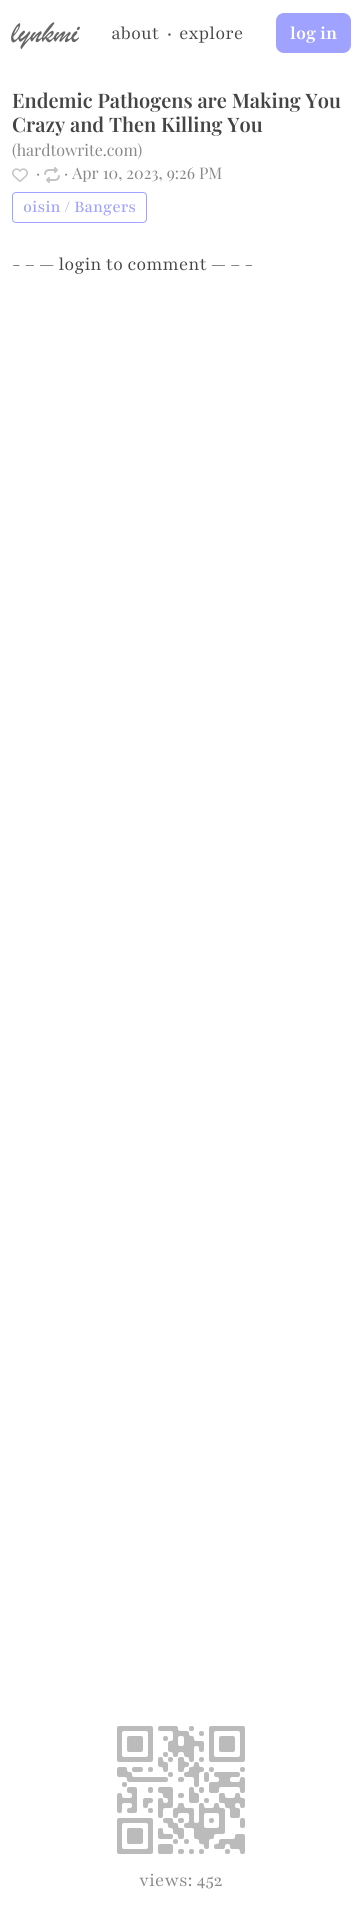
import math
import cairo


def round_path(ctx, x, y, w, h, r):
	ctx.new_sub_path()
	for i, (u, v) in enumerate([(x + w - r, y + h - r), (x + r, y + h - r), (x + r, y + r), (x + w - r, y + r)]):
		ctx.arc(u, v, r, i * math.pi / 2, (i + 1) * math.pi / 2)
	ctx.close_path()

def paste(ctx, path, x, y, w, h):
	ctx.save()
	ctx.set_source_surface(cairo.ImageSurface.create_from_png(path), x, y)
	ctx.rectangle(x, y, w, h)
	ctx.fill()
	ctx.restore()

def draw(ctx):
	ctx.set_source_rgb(1, 1, 1)
	ctx.paint()
	ctx.select_font_face('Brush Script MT')
	ctx.set_font_size(32)
	ctx.set_source_rgb(0.4, 0.4, 0.4)
	ctx.move_to(11, 42)
	ctx.show_text('lynkmi')
	ctx.select_font_face('Playfair Light')
	ctx.set_font_size(20)
	ctx.set_source_rgb(0.267, 0.267, 0.267)
	for x, y, s in [
		(111, 39, 'about'),
		(167, 39, '·'),
		(179, 39, 'explore'),
	]:
		ctx.move_to(x, y)
		ctx.show_text(s)
	ctx.set_source_rgb(0.624, 0.635, 1)
	round_path(ctx, 276, 13, 75, 40, 8)
	ctx.fill()
	ctx.select_font_face('Playfair', cairo.FONT_SLANT_NORMAL, cairo.FONT_WEIGHT_BOLD)
	ctx.set_source_rgb(1, 1, 1)
	ctx.move_to(290, 39)
	ctx.show_text('log in')
	ctx.select_font_face('Playfair Display SemiBold')
	ctx.set_source_rgb(0.267, 0.267, 0.267)
	ctx.move_to(12, 108)
	ctx.show_text('Endemic Pathogens are Making You')
	ctx.move_to(12, 132)
	ctx.show_text('Crazy and Then Killing You')
	ctx.select_font_face('Playfair Display')
	ctx.set_font_size(16)
	ctx.set_source_rgb(0.533, 0.533, 0.533)
	ctx.move_to(12, 156)
	ctx.show_text('(hardtowrite.com)')
	paste(ctx, 'media/1.png', 12, 168, 16, 14)
	ctx.move_to(36, 179)
	ctx.show_text('·')
	paste(ctx, 'media/2.png', 44, 167, 16, 16)
	ctx.move_to(64, 179)
	ctx.show_text('· Apr 10, 2023, 9:26 PM')
	round_path(ctx, 12.5, 192.5, 134, 30, 3.5)
	ctx.set_source_rgb(0.624, 0.635, 1)
	ctx.set_line_width(1)
	ctx.stroke()
	ctx.select_font_face('Playfair Medium')
	ctx.set_font_size(18)
	ctx.move_to(23, 212)
	ctx.show_text('oisin / Bangers')
	ctx.select_font_face('Playfair Light')
	ctx.set_font_size(20)
	ctx.set_source_rgb(0.267, 0.267, 0.267)
	ctx.move_to(12, 270)
	ctx.show_text('- – — login to comment — – -')
	paste(ctx, 'media/3.png', 117, 1726, 128, 128)
	ctx.set_source_rgb(0.533, 0.533, 0.533)
	ctx.move_to(139, 1886)
	ctx.show_text('views: 452')


surface = cairo.ImageSurface(cairo.FORMAT_RGB24, 362, 1906)
ctx = cairo.Context(surface)
options = cairo.FontOptions()
options.set_hint_metrics(cairo.HINT_METRICS_OFF)
options.set_hint_style(cairo.HINT_STYLE_NONE)
ctx.set_font_options(options)
ctx.set_miter_limit(4)
draw(ctx)
surface.write_to_png('image.png')
